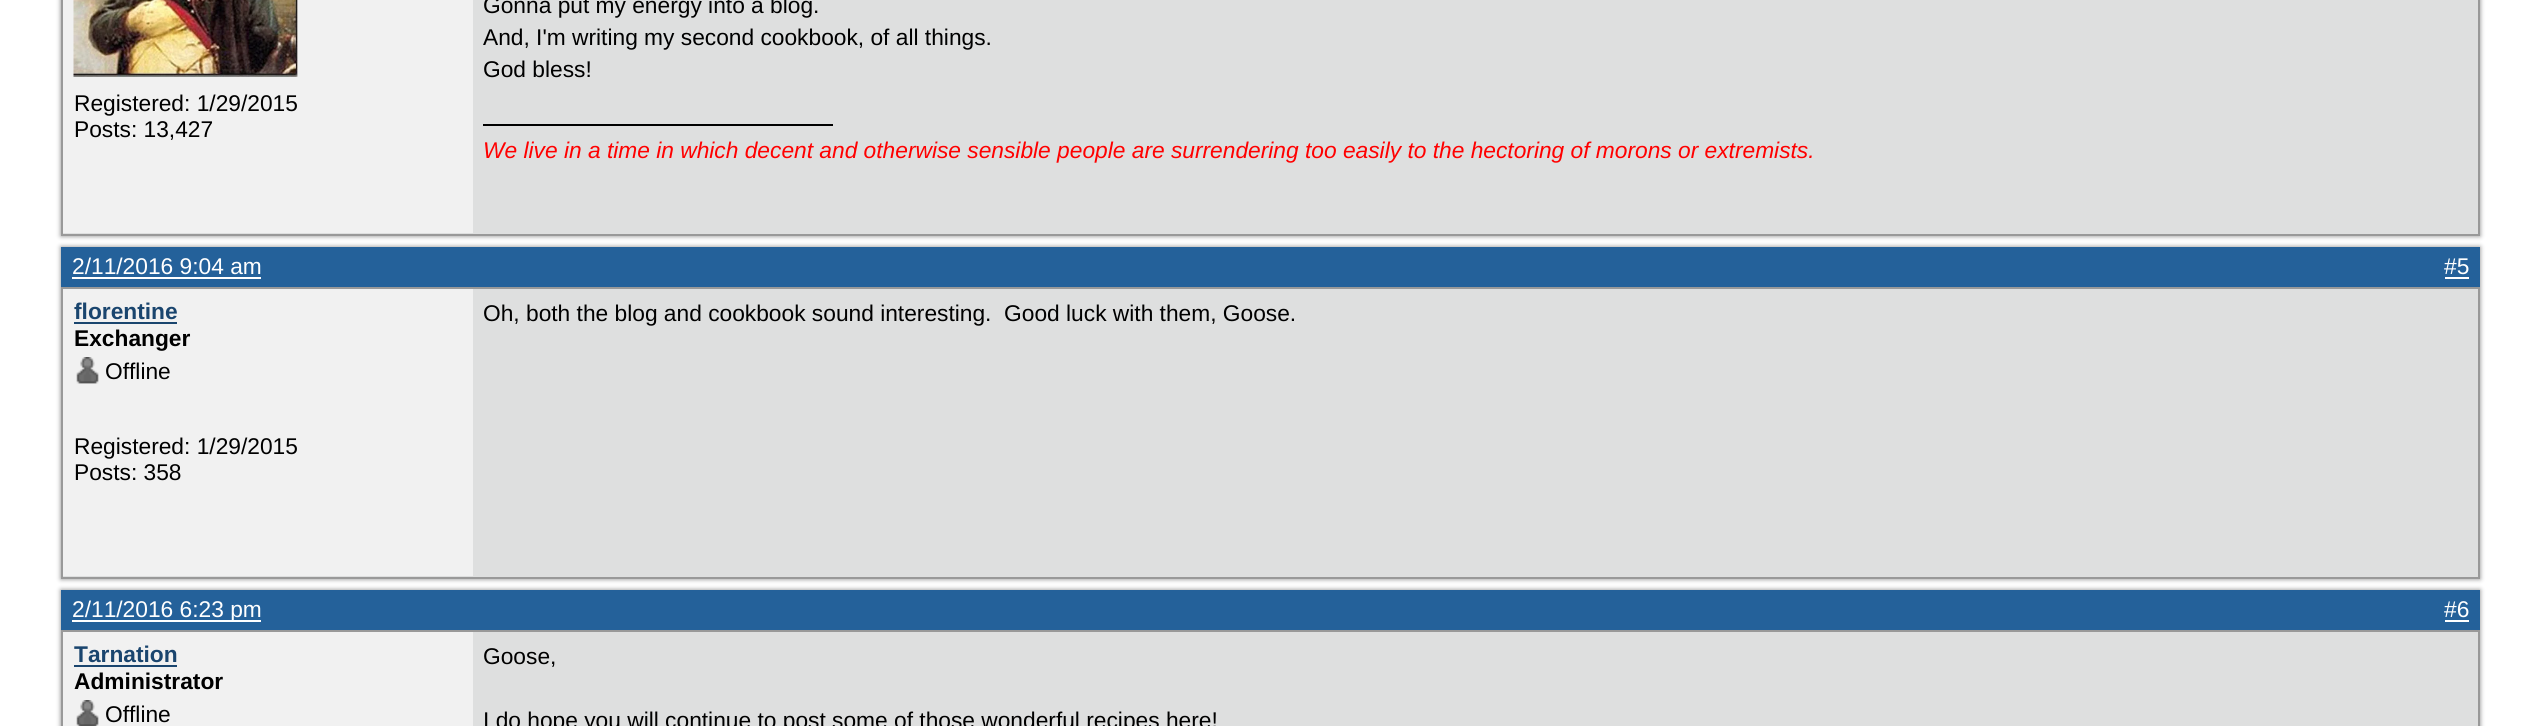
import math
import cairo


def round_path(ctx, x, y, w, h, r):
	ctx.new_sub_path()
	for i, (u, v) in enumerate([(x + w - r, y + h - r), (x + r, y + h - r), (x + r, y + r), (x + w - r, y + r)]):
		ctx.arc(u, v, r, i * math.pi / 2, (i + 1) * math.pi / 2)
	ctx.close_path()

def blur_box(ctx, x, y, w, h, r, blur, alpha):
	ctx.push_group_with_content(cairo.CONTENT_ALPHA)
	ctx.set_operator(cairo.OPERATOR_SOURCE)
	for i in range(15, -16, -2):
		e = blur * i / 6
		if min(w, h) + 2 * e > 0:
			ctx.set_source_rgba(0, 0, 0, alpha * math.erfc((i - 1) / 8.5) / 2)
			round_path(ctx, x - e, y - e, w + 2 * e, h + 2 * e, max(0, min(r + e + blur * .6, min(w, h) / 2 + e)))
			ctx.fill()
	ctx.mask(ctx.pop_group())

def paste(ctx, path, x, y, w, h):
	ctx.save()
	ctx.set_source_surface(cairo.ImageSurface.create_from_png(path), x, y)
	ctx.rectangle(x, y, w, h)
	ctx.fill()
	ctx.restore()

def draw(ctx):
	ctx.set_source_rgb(1, 1, 1)
	ctx.paint()
	ctx.set_source_rgb(0.533, 0.533, 0.533)
	blur_box(ctx, 61, -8, 2419, 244, 0, 2.5, 1)
	ctx.set_source_rgb(0.871, 0.875, 0.875)
	ctx.rectangle(62, -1, 2417, 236)
	ctx.fill_preserve()
	ctx.set_source_rgb(0.6, 0.6, 0.6)
	ctx.stroke()
	ctx.set_source_rgb(0.945, 0.945, 0.945)
	ctx.rectangle(63, 0, 410, 233)
	ctx.fill()
	ctx.select_font_face('Liberation Sans')
	ctx.set_font_size(22.75)
	ctx.set_source_rgb(0, 0, 0)
	for x, y, s in [
		(483, 13, 'Gonna put my energy into a blog.'),
		(483, 45, 'And, I\'m writing my second cookbook, of all things.'),
		(483, 77, 'God bless!'),
	]:
		ctx.move_to(x, y)
		ctx.show_text(s)
	ctx.rectangle(483, 124, 350, 2)
	ctx.fill()
	ctx.select_font_face('Liberation Sans', cairo.FONT_SLANT_ITALIC)
	ctx.set_source_rgb(1, 0, 0)
	ctx.move_to(483, 158)
	ctx.show_text('We live in a time in which decent and otherwise sensible people are surrendering too easily to the hectoring of morons or extremists.')
	paste(ctx, 'media/1.png', 73, 0, 225, 77)
	ctx.select_font_face('Liberation Sans')
	ctx.set_source_rgb(0, 0, 0)
	ctx.move_to(74, 111)
	ctx.show_text('Registered: 1/29/2015')
	ctx.move_to(74, 137)
	ctx.show_text('Posts: 13,427')
	ctx.set_source_rgb(0.533, 0.533, 0.533)
	blur_box(ctx, 61, 247, 2419, 332, 0, 2.5, 1)
	ctx.set_source_rgb(0.141, 0.38, 0.604)
	ctx.rectangle(61, 247, 2419, 40)
	ctx.fill()
	ctx.set_source_rgb(1, 1, 1)
	ctx.move_to(72, 274)
	ctx.show_text('2/11/2016 9:04 am')
	ctx.rectangle(72, 277, 189, 2)
	ctx.fill()
	ctx.move_to(2444, 274)
	ctx.show_text('#5')
	ctx.rectangle(2445, 277, 24, 2)
	ctx.fill()
	ctx.set_source_rgb(0.871, 0.875, 0.875)
	ctx.rectangle(62, 288, 2417, 290)
	ctx.fill_preserve()
	ctx.set_source_rgb(0.6, 0.6, 0.6)
	ctx.stroke()
	ctx.set_source_rgb(0.945, 0.945, 0.945)
	ctx.rectangle(63, 289, 410, 287)
	ctx.fill()
	ctx.select_font_face('Liberation Sans', cairo.FONT_SLANT_NORMAL, cairo.FONT_WEIGHT_BOLD)
	ctx.set_source_rgb(0.102, 0.271, 0.431)
	ctx.move_to(74, 319)
	ctx.show_text('florentine')
	ctx.rectangle(74, 322, 103, 2)
	ctx.fill()
	ctx.set_source_rgb(0, 0, 0)
	ctx.move_to(74, 346)
	ctx.show_text('Exchanger')
	paste(ctx, 'media/2.png', 76, 357, 23, 27)
	ctx.select_font_face('Liberation Sans')
	for x, y, s in [
		(105, 379, 'Offline'),
		(74, 454, 'Registered: 1/29/2015'),
		(74, 480, 'Posts: 358'),
		(483, 321, 'Oh, both the blog and cookbook sound interesting.  Good luck with them, Goose.'),
	]:
		ctx.move_to(x, y)
		ctx.show_text(s)
	ctx.set_source_rgb(0.533, 0.533, 0.533)
	blur_box(ctx, 61, 590, 2419, 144, 0, 2.5, 1)
	ctx.set_source_rgb(0.141, 0.38, 0.604)
	ctx.rectangle(61, 590, 2419, 40)
	ctx.fill()
	ctx.set_source_rgb(1, 1, 1)
	ctx.rectangle(72, 620, 189, 2)
	ctx.fill()
	ctx.move_to(72, 617)
	ctx.show_text('2/11/2016 6:23 pm')
	ctx.move_to(2444, 617)
	ctx.show_text('#6')
	ctx.rectangle(2445, 620, 24, 2)
	ctx.fill()
	ctx.set_source_rgb(0.871, 0.875, 0.875)
	ctx.rectangle(473, 632, 2005, 94)
	ctx.fill()
	ctx.rectangle(62, 631, 2417, 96)
	ctx.set_source_rgb(0.6, 0.6, 0.6)
	ctx.stroke()
	ctx.set_source_rgb(0.945, 0.945, 0.945)
	ctx.rectangle(63, 632, 410, 94)
	ctx.fill()
	ctx.select_font_face('Liberation Sans', cairo.FONT_SLANT_NORMAL, cairo.FONT_WEIGHT_BOLD)
	ctx.set_source_rgb(0.102, 0.271, 0.431)
	ctx.move_to(74, 662)
	ctx.show_text('Tarnation')
	ctx.rectangle(74, 665, 103, 2)
	ctx.fill()
	ctx.set_source_rgb(0, 0, 0)
	ctx.move_to(74, 689)
	ctx.show_text('Administrator')
	paste(ctx, 'media/3.png', 76, 700, 23, 26)
	ctx.select_font_face('Liberation Sans')
	for x, y, s in [
		(105, 722, 'Offline'),
		(483, 664, 'Goose,'),
		(483, 728, 'I do hope you will continue to post some of those wonderful recipes here!'),
	]:
		ctx.move_to(x, y)
		ctx.show_text(s)


surface = cairo.ImageSurface(cairo.FORMAT_RGB24, 2541, 726)
ctx = cairo.Context(surface)
options = cairo.FontOptions()
options.set_hint_metrics(cairo.HINT_METRICS_OFF)
options.set_hint_style(cairo.HINT_STYLE_NONE)
ctx.set_font_options(options)
ctx.set_miter_limit(4)
draw(ctx)
surface.write_to_png('image.png')
